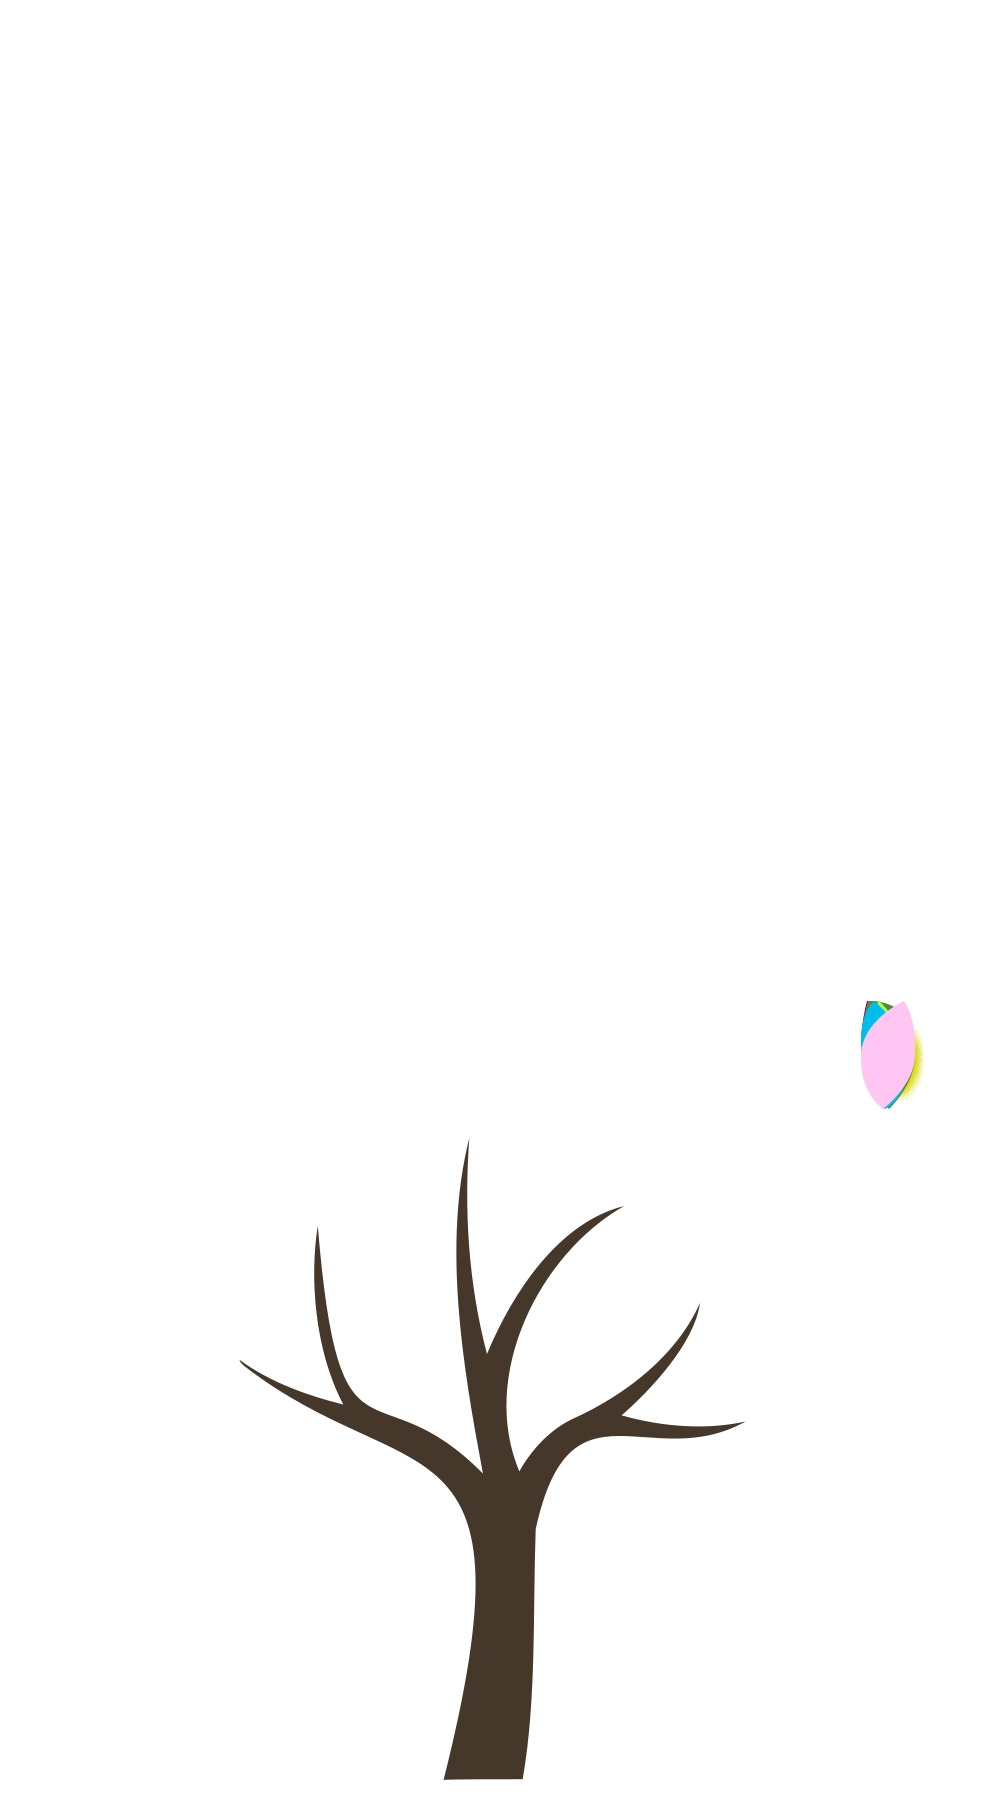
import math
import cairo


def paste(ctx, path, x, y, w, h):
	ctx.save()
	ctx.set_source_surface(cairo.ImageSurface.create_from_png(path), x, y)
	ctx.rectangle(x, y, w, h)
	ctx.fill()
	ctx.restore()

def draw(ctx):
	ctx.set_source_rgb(1, 1, 1)
	ctx.paint()
	paste(ctx, 'media/1.png', 897, 1029, 26, 71)
	paste(ctx, 'media/2.png', 897, 1029, 26, 71)
	paste(ctx, 'media/3.png', 897, 1029, 26, 71)
	paste(ctx, 'media/4.png', 897, 1029, 26, 71)
	paste(ctx, 'media/5.png', 897, 1029, 26, 71)
	paste(ctx, 'media/6.png', 897, 1029, 26, 71)
	paste(ctx, 'media/7.png', 897, 1029, 26, 71)
	paste(ctx, 'media/8.png', 897, 1029, 26, 71)
	paste(ctx, 'media/9.png', 897, 1029, 26, 71)
	ctx.set_source_rgb(0.49, 0, 0.58)
	ctx.new_path()
	ctx.move_to(861, 1048)
	ctx.curve_to(861, 1032, 863, 1016, 867, 1001)
	ctx.curve_to(867, 1001, 908, 997, 905, 1055)
	ctx.curve_to(905, 1085, 884, 1109, 884, 1109)
	ctx.curve_to(884, 1109, 861, 1078, 861, 1048)
	ctx.close_path()
	ctx.fill()
	paste(ctx, 'media/10.png', 897, 1029, 26, 71)
	ctx.save()
	ctx.rectangle(861, 1001, 54, 108)
	ctx.clip()
	ctx.set_source_rgb(0.341, 0.537, 0.208)
	ctx.new_path()
	ctx.move_to(861, 1048)
	ctx.curve_to(861, 1032, 864, 1016, 868, 1001)
	ctx.curve_to(868, 1001, 919, 997, 915, 1055)
	ctx.curve_to(915, 1085, 889, 1109, 889, 1109)
	ctx.curve_to(889, 1109, 861, 1078, 861, 1048)
	ctx.close_path()
	ctx.fill()
	ctx.restore()
	ctx.set_source_rgb(0.631, 1, 0.333)
	ctx.new_path()
	ctx.move_to(861, 1055)
	ctx.curve_to(861, 1025, 879, 1001, 879, 1001)
	ctx.curve_to(879, 1001, 906, 1025, 906, 1055)
	ctx.curve_to(906, 1085, 883, 1109, 883, 1109)
	ctx.curve_to(883, 1109, 863, 1093, 861, 1055)
	ctx.close_path()
	ctx.fill()
	ctx.set_source_rgb(0, 0.745, 0.914)
	ctx.new_path()
	ctx.move_to(909, 1056)
	ctx.curve_to(909, 1099, 885, 1109, 885, 1109)
	ctx.curve_to(885, 1109, 868, 1079, 862, 1052)
	ctx.curve_to(857, 1015, 874, 1001, 874, 1001)
	ctx.curve_to(874, 1001, 909, 1030, 909, 1056)
	ctx.close_path()
	ctx.fill()
	ctx.save()
	ctx.rectangle(861, 1001, 54, 108)
	ctx.clip()
	ctx.set_source_rgb(1, 0.776, 0.957)
	ctx.new_path()
	ctx.move_to(915, 1055)
	ctx.curve_to(917, 1017, 904, 1001, 904, 1001)
	ctx.curve_to(904, 1001, 859, 1021, 861, 1059)
	ctx.curve_to(861, 1095, 883, 1109, 883, 1109)
	ctx.curve_to(883, 1109, 915, 1085, 915, 1055)
	ctx.close_path()
	ctx.fill()
	ctx.restore()
	paste(ctx, 'media/11.png', 239, 1138, 507, 642)


surface = cairo.ImageSurface(cairo.FORMAT_RGB24, 1002, 1806)
ctx = cairo.Context(surface)
options = cairo.FontOptions()
options.set_hint_metrics(cairo.HINT_METRICS_OFF)
options.set_hint_style(cairo.HINT_STYLE_NONE)
ctx.set_font_options(options)
ctx.set_miter_limit(4)
draw(ctx)
surface.write_to_png('image.png')
